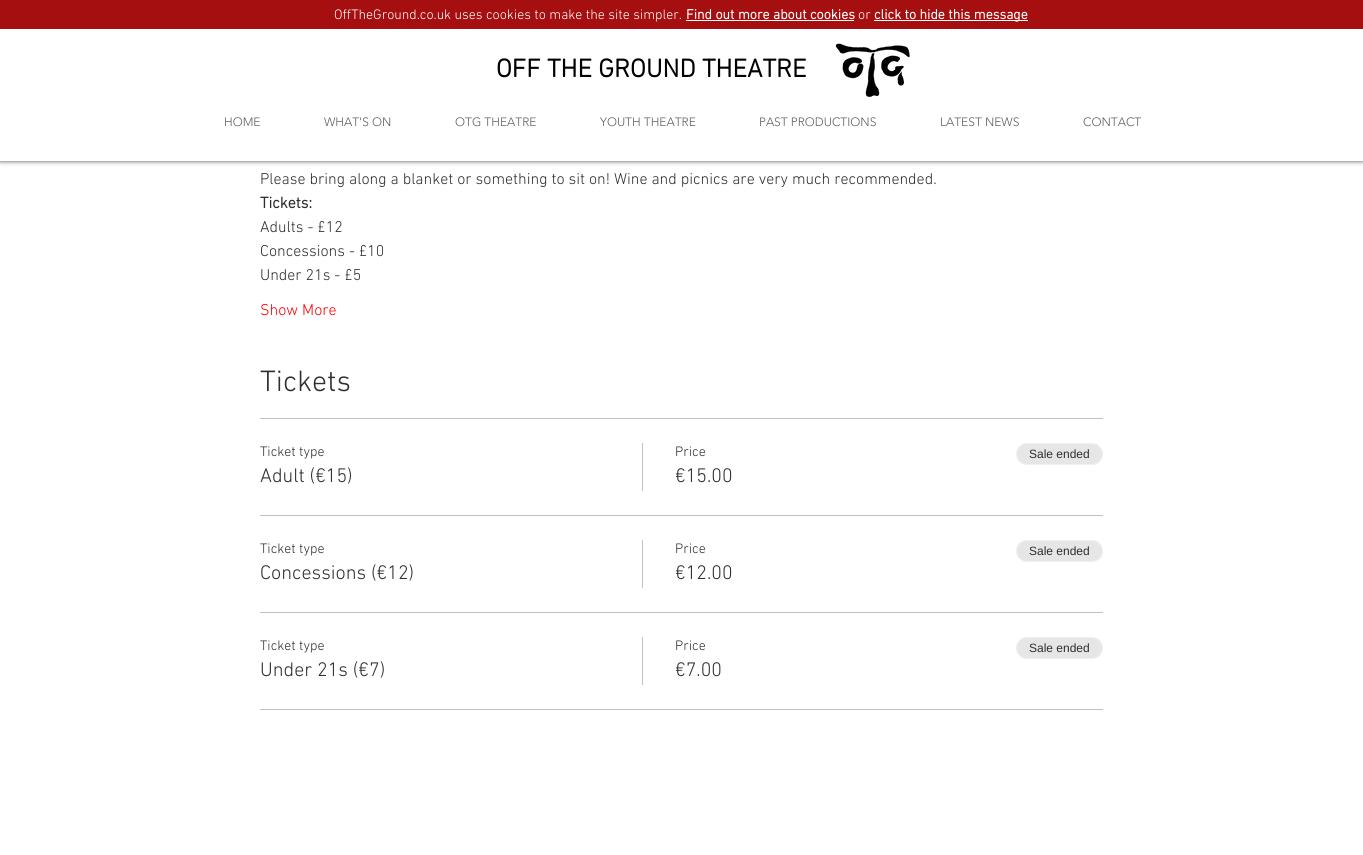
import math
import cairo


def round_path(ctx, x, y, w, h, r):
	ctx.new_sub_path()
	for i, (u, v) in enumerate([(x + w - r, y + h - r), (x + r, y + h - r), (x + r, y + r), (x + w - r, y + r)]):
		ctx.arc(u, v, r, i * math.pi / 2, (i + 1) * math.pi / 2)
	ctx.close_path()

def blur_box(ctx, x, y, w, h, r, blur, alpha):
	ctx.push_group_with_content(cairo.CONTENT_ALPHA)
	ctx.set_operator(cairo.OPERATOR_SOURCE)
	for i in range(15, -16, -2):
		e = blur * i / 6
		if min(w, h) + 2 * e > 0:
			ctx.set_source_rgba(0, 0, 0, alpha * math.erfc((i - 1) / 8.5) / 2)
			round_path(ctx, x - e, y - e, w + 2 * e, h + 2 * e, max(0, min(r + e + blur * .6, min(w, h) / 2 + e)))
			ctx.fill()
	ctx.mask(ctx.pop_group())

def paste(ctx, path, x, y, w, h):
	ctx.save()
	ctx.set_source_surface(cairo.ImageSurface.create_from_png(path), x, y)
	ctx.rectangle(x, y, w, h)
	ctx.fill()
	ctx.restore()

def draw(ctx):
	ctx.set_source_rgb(1, 1, 1)
	ctx.paint()
	ctx.set_source_rgb(0, 0, 0)
	blur_box(ctx, 0, 0, 1363, 161, 0, 2.5, 0.7)
	ctx.set_source_rgb(1, 1, 1)
	ctx.rectangle(0, 29, 1363, 132)
	ctx.fill()
	ctx.set_source_rgb(0.651, 0.059, 0.059)
	ctx.rectangle(0, 0, 1363, 29)
	ctx.fill()
	ctx.select_font_face('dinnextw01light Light')
	ctx.set_font_size(14)
	ctx.set_source_rgb(1, 1, 1)
	ctx.move_to(334, 19)
	ctx.show_text('OffTheGround.co.uk uses cookies to make the site simpler.')
	ctx.select_font_face('dinnextw01light', cairo.FONT_SLANT_NORMAL, cairo.FONT_WEIGHT_BOLD)
	ctx.move_to(686, 19)
	ctx.show_text('Find out more about cookies')
	ctx.rectangle(686, 20, 168, 1)
	ctx.fill()
	ctx.select_font_face('dinnextw01light Light')
	ctx.move_to(858, 19)
	ctx.show_text('or')
	ctx.rectangle(874, 20, 154, 1)
	ctx.fill()
	ctx.select_font_face('dinnextw01light', cairo.FONT_SLANT_NORMAL, cairo.FONT_WEIGHT_BOLD)
	ctx.move_to(874, 19)
	ctx.show_text('click to hide this message')
	ctx.set_font_size(26)
	ctx.set_source_rgb(0, 0, 0)
	ctx.move_to(496, 77)
	ctx.show_text('OFF THE GROUND THEATRE')
	paste(ctx, 'media/1.png', 835, 43, 75, 54)
	ctx.select_font_face('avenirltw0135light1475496 Light')
	ctx.set_font_size(12)
	ctx.set_source_rgb(0.376, 0.369, 0.369)
	for x, y, s in [
		(224, 126, 'HOME'),
		(324, 126, 'WHAT\'S ON'),
		(455, 126, 'OTG THEATRE'),
		(600, 126, 'YOUTH THEATRE'),
		(759, 126, 'PAST PRODUCTIONS'),
		(940, 126, 'LATEST NEWS'),
		(1083, 126, 'CONTACT'),
	]:
		ctx.move_to(x, y)
		ctx.show_text(s)
	ctx.select_font_face('dinnextw01light Light')
	ctx.set_font_size(16)
	ctx.set_source_rgb(0.184, 0.18, 0.18)
	ctx.move_to(260, 184)
	ctx.show_text('Please bring along a blanket or something to sit on! Wine and picnics are very much recommended.')
	ctx.select_font_face('dinnextw01light', cairo.FONT_SLANT_NORMAL, cairo.FONT_WEIGHT_BOLD)
	ctx.move_to(260, 208)
	ctx.show_text('Tickets:')
	ctx.select_font_face('dinnextw01light Light')
	for x, y, s in [
		(260, 232, 'Adults - £12'),
		(260, 256, 'Concessions - £10'),
		(260, 280, 'Under 21s - £5'),
	]:
		ctx.move_to(x, y)
		ctx.show_text(s)
	ctx.set_source_rgb(1, 0, 0)
	ctx.move_to(260, 315)
	ctx.show_text('Show More')
	ctx.set_font_size(30)
	ctx.set_source_rgb(0.184, 0.18, 0.18)
	ctx.move_to(260, 391)
	ctx.show_text('Tickets')
	ctx.set_source_rgb(0.757, 0.753, 0.753)
	ctx.rectangle(260, 418, 843, 1)
	ctx.fill()
	ctx.rectangle(260, 515, 843, 1)
	ctx.fill()
	ctx.set_font_size(14)
	ctx.set_source_rgb(0.184, 0.18, 0.18)
	ctx.move_to(260, 456)
	ctx.show_text('Ticket type')
	ctx.set_font_size(20)
	ctx.move_to(260, 482)
	ctx.show_text('Adult (€15)')
	ctx.set_source_rgb(0.757, 0.753, 0.753)
	ctx.rectangle(642, 443, 1, 48)
	ctx.fill()
	ctx.set_font_size(14)
	ctx.set_source_rgb(0.184, 0.18, 0.18)
	ctx.move_to(675, 456)
	ctx.show_text('Price')
	ctx.set_font_size(20)
	ctx.move_to(675, 482)
	ctx.show_text('€15.00')
	ctx.set_source_rgb(0.902, 0.902, 0.902)
	round_path(ctx, 1016, 443, 87, 22, 11)
	ctx.fill()
	round_path(ctx, 1016.5, 443.5, 86, 21, 10.5)
	ctx.set_source_rgba(1, 1, 1, 0.4)
	ctx.set_line_width(1)
	ctx.stroke()
	ctx.select_font_face('Liberation Sans')
	ctx.set_font_size(12)
	ctx.set_source_rgb(0.184, 0.18, 0.18)
	ctx.move_to(1029, 458)
	ctx.show_text('Sale ended')
	ctx.set_source_rgb(0.757, 0.753, 0.753)
	ctx.rectangle(260, 612, 843, 1)
	ctx.fill()
	ctx.select_font_face('dinnextw01light Light')
	ctx.set_font_size(14)
	ctx.set_source_rgb(0.184, 0.18, 0.18)
	ctx.move_to(260, 553)
	ctx.show_text('Ticket type')
	ctx.set_font_size(20)
	ctx.move_to(260, 579)
	ctx.show_text('Concessions (€12)')
	ctx.set_source_rgb(0.757, 0.753, 0.753)
	ctx.rectangle(642, 540, 1, 48)
	ctx.fill()
	ctx.set_font_size(14)
	ctx.set_source_rgb(0.184, 0.18, 0.18)
	ctx.move_to(675, 553)
	ctx.show_text('Price')
	ctx.set_font_size(20)
	ctx.move_to(675, 579)
	ctx.show_text('€12.00')
	ctx.set_source_rgb(0.902, 0.902, 0.902)
	round_path(ctx, 1016, 540, 87, 22, 11)
	ctx.fill()
	round_path(ctx, 1016.5, 540.5, 86, 21, 10.5)
	ctx.set_source_rgba(1, 1, 1, 0.4)
	ctx.stroke()
	ctx.select_font_face('Liberation Sans')
	ctx.set_font_size(12)
	ctx.set_source_rgb(0.184, 0.18, 0.18)
	ctx.move_to(1029, 555)
	ctx.show_text('Sale ended')
	ctx.set_source_rgb(0.757, 0.753, 0.753)
	ctx.rectangle(260, 709, 843, 1)
	ctx.fill()
	ctx.select_font_face('dinnextw01light Light')
	ctx.set_font_size(14)
	ctx.set_source_rgb(0.184, 0.18, 0.18)
	ctx.move_to(260, 650)
	ctx.show_text('Ticket type')
	ctx.set_font_size(20)
	ctx.move_to(260, 676)
	ctx.show_text('Under 21s (€7)')
	ctx.set_source_rgb(0.757, 0.753, 0.753)
	ctx.rectangle(642, 637, 1, 48)
	ctx.fill()
	ctx.set_font_size(14)
	ctx.set_source_rgb(0.184, 0.18, 0.18)
	ctx.move_to(675, 650)
	ctx.show_text('Price')
	ctx.set_font_size(20)
	ctx.move_to(675, 676)
	ctx.show_text('€7.00')
	ctx.set_source_rgb(0.902, 0.902, 0.902)
	round_path(ctx, 1016, 637, 87, 22, 11)
	ctx.fill()
	round_path(ctx, 1016.5, 637.5, 86, 21, 10.5)
	ctx.set_source_rgba(1, 1, 1, 0.4)
	ctx.stroke()
	ctx.select_font_face('Liberation Sans')
	ctx.set_font_size(12)
	ctx.set_source_rgb(0.184, 0.18, 0.18)
	ctx.move_to(1029, 652)
	ctx.show_text('Sale ended')


surface = cairo.ImageSurface(cairo.FORMAT_RGB24, 1363, 855)
ctx = cairo.Context(surface)
options = cairo.FontOptions()
options.set_hint_metrics(cairo.HINT_METRICS_OFF)
options.set_hint_style(cairo.HINT_STYLE_NONE)
ctx.set_font_options(options)
ctx.set_miter_limit(4)
draw(ctx)
surface.write_to_png('image.png')
